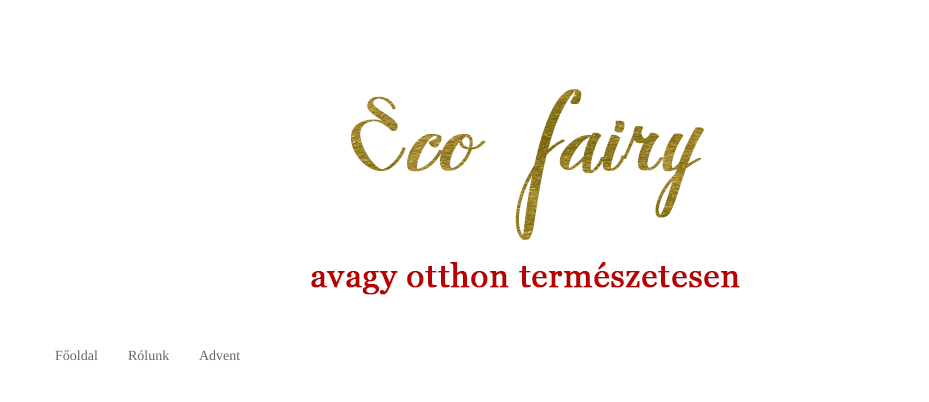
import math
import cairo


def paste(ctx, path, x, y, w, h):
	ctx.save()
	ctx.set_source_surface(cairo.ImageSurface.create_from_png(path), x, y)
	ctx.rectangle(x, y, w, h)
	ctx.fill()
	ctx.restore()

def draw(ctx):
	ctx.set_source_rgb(1, 1, 1)
	ctx.paint()
	paste(ctx, 'media/1.png', 311, 89, 429, 206)
	ctx.select_font_face('Liberation Serif')
	ctx.set_font_size(14)
	ctx.set_source_rgb(0.4, 0.4, 0.4)
	for x, y, s in [
		(55, 360, 'Főoldal'),
		(128, 360, 'Rólunk'),
		(199, 360, 'Advent'),
	]:
		ctx.move_to(x, y)
		ctx.show_text(s)


surface = cairo.ImageSurface(cairo.FORMAT_RGB24, 929, 402)
ctx = cairo.Context(surface)
options = cairo.FontOptions()
options.set_hint_metrics(cairo.HINT_METRICS_OFF)
options.set_hint_style(cairo.HINT_STYLE_NONE)
ctx.set_font_options(options)
ctx.set_miter_limit(4)
draw(ctx)
surface.write_to_png('image.png')
